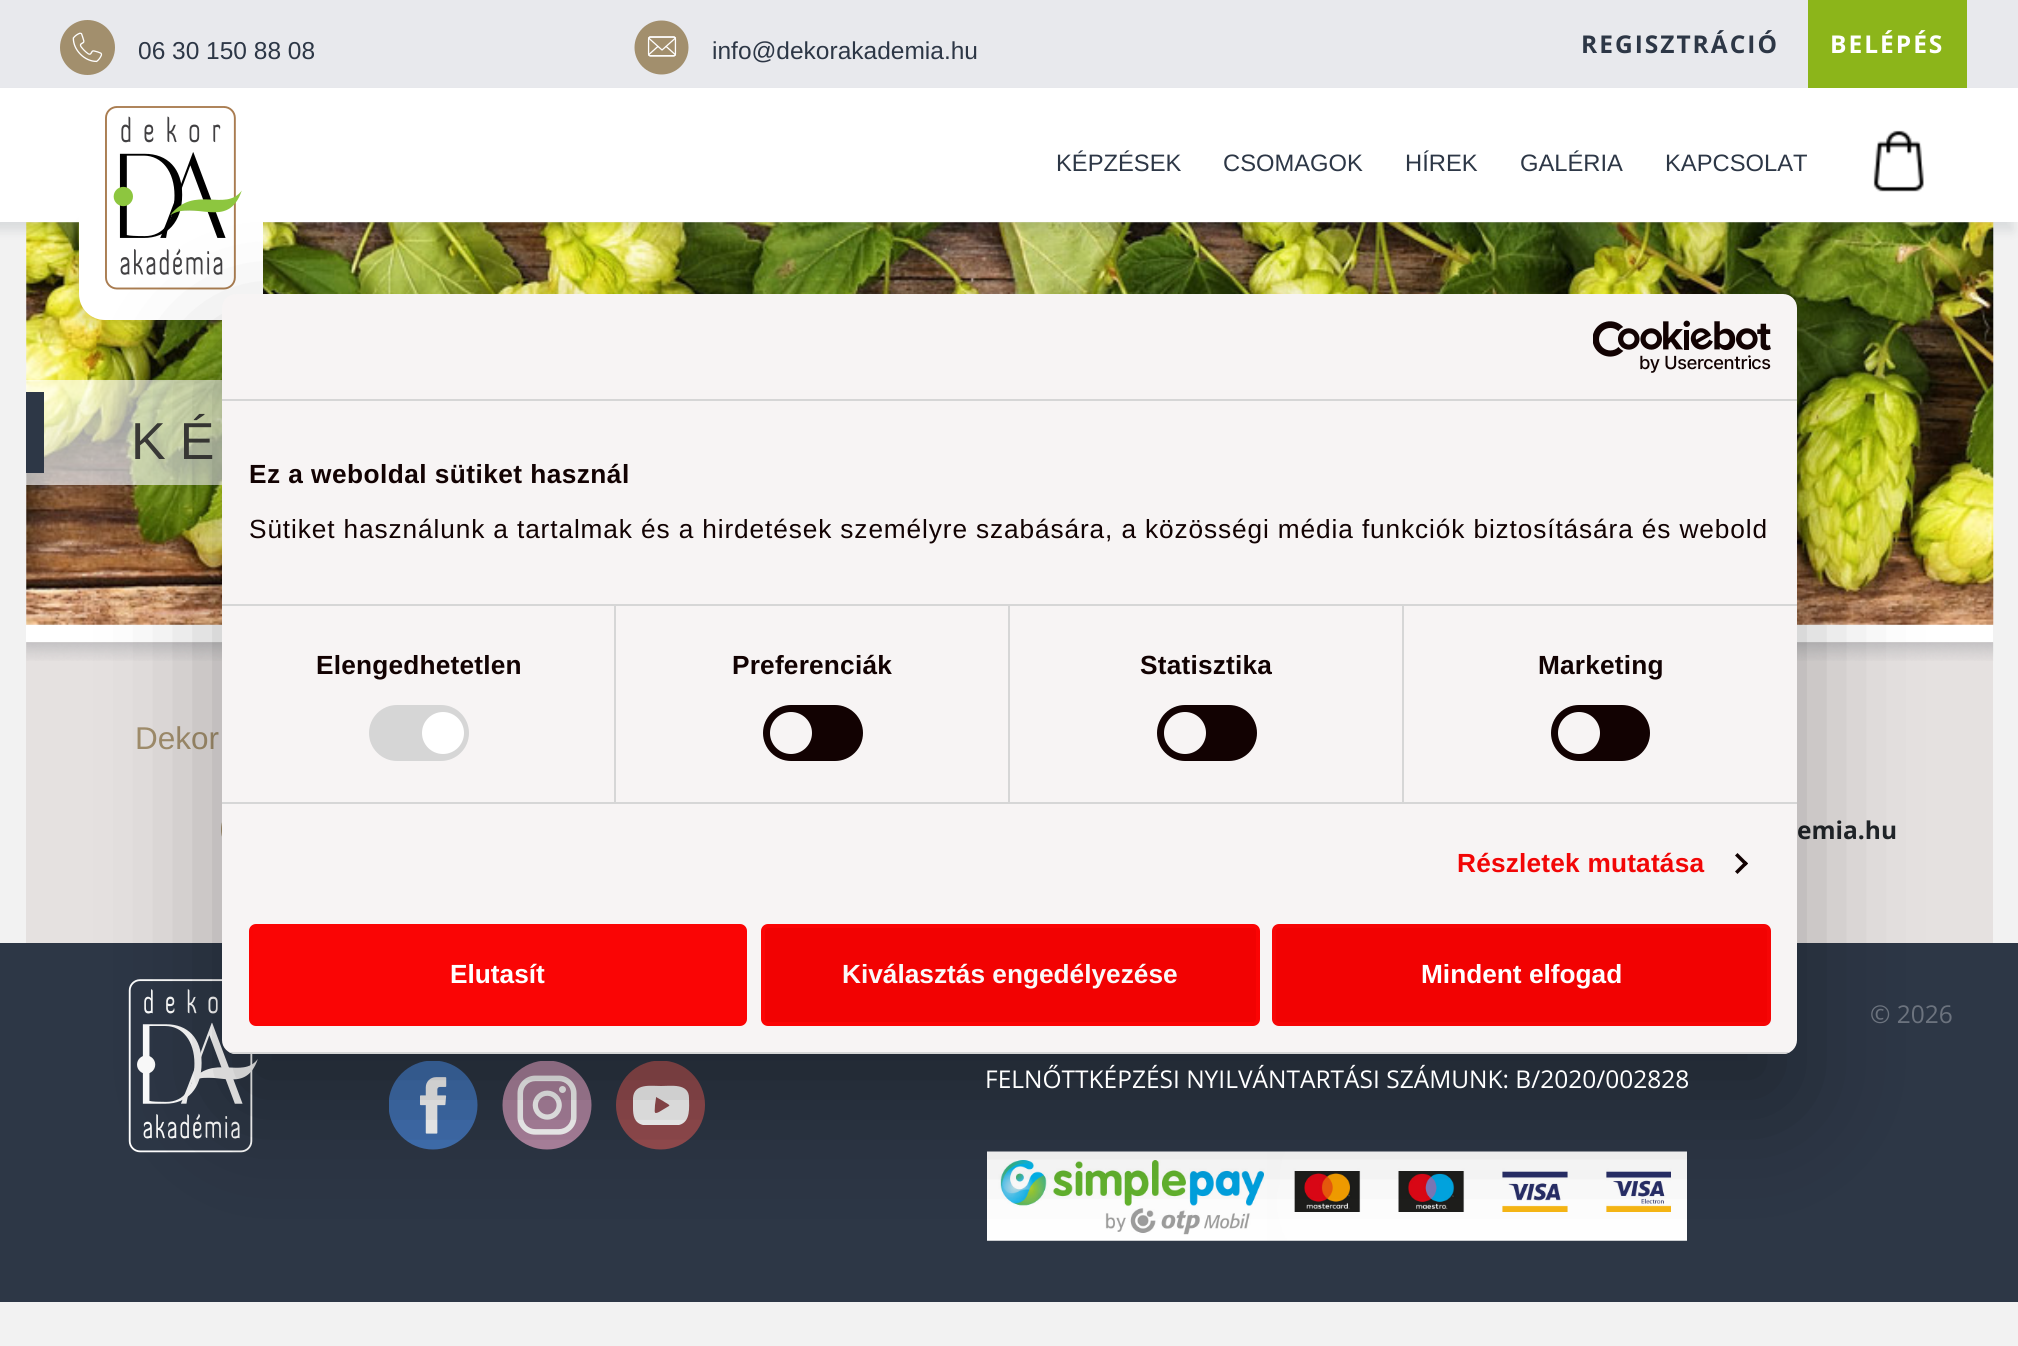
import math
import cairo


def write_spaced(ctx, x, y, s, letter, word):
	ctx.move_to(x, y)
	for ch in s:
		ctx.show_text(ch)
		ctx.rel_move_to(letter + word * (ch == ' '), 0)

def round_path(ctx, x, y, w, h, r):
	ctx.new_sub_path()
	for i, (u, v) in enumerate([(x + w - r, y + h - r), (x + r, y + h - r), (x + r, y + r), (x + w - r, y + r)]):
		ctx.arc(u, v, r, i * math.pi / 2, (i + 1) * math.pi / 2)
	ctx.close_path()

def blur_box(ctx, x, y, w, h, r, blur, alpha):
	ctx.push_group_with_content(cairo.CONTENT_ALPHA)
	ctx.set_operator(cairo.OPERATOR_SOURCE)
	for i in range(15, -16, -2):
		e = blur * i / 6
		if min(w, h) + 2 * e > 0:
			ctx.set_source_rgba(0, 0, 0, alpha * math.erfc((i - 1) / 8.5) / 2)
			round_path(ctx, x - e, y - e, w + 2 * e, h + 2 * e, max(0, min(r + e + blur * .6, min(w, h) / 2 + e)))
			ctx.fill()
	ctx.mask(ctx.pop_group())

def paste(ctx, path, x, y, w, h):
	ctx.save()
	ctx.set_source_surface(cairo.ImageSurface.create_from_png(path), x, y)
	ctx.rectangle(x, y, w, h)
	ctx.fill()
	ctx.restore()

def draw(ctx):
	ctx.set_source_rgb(0.949, 0.949, 0.949)
	ctx.paint()
	ctx.set_source_rgb(0.91, 0.914, 0.929)
	ctx.rectangle(0, 0, 2018, 88)
	ctx.fill()
	paste(ctx, 'media/1.png', 60, 20, 55, 55)
	ctx.select_font_face('Liberation Sans')
	ctx.set_font_size(24.5)
	ctx.set_source_rgb(0.176, 0.216, 0.275)
	ctx.move_to(138, 59)
	ctx.show_text('06 30 150 88 08')
	paste(ctx, 'media/2.png', 634, 20, 55, 55)
	ctx.move_to(712, 59)
	ctx.show_text('info@dekorakademia.hu')
	ctx.select_font_face('Open Sans', cairo.FONT_SLANT_NORMAL, cairo.FONT_WEIGHT_BOLD)
	write_spaced(ctx, 1581, 53, 'REGISZTRÁCIÓ', 2, 0)
	ctx.set_source_rgb(0.549, 0.71, 0.102)
	ctx.rectangle(1808, 0, 159, 88)
	ctx.fill()
	ctx.set_source_rgb(1, 1, 1)
	write_spaced(ctx, 1830, 53, 'BELÉPÉS', 2, 0)
	paste(ctx, 'media/5.png', 26, 222, 1968, 403)
	ctx.set_source_rgb(0.094, 0.165, 0.212)
	blur_box(ctx, -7, 96, 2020, 135, 0, 5, 0.11)
	ctx.set_source_rgb(1, 1, 1)
	ctx.rectangle(0, 88, 2018, 134)
	ctx.fill()
	ctx.set_source_rgb(0.094, 0.165, 0.212)
	blur_box(ctx, 72, 219, 184, 110, 26, 5, 0.11)
	ctx.set_source_rgb(1, 1, 1)
	ctx.new_path()
	ctx.move_to(79, 210)
	ctx.line_to(263, 210)
	ctx.line_to(263, 294)
	ctx.curve_to(263, 308.5, 251.5, 320, 237, 320)
	ctx.line_to(105, 320)
	ctx.curve_to(90.5, 320, 79, 308.5, 79, 294)
	ctx.close_path()
	ctx.fill()
	paste(ctx, 'media/3.png', 105, 106, 137, 184)
	ctx.select_font_face('Liberation Sans')
	ctx.set_font_size(23.75)
	ctx.set_source_rgb(0.176, 0.216, 0.275)
	for x, y, s in [
		(1056, 171, 'KÉPZÉSEK'),
		(1223, 171, 'CSOMAGOK'),
		(1405, 171, 'HÍREK'),
		(1520, 171, 'GALÉRIA'),
		(1665, 171, 'KAPCSOLAT'),
	]:
		ctx.move_to(x, y)
		ctx.show_text(s)
	paste(ctx, 'media/4.png', 1873, 130, 51, 62)
	ctx.set_source_rgba(1, 1, 1, 0.65)
	ctx.rectangle(26, 380, 196, 105)
	ctx.fill()
	ctx.set_source_rgb(0.176, 0.216, 0.275)
	ctx.rectangle(26, 392, 18, 81)
	ctx.fill()
	ctx.set_font_size(52)
	ctx.set_source_rgb(0.231, 0.231, 0.22)
	write_spaced(ctx, 131, 459, 'KÉ', 14, 0)
	ctx.set_source_rgb(1, 1, 1)
	ctx.rectangle(26, 625, 1967, 17)
	ctx.fill()
	ctx.set_source_rgb(0.898, 0.882, 0.878)
	ctx.rectangle(26, 642, 1967, 301)
	ctx.fill()
	paste(ctx, 'media/6.png', 26, 642, 1968, 19)
	ctx.set_font_size(31.5)
	ctx.set_source_rgb(0.635, 0.561, 0.427)
	ctx.move_to(135, 749)
	ctx.show_text('Dekor')
	paste(ctx, 'media/7.png', 221, 822, 1, 15)
	ctx.select_font_face('Open Sans', cairo.FONT_SLANT_NORMAL, cairo.FONT_WEIGHT_BOLD)
	ctx.set_font_size(24.5)
	ctx.set_source_rgb(0.129, 0.145, 0.161)
	ctx.move_to(1797, 839)
	ctx.show_text('emia.hu')
	ctx.set_source_rgb(0.176, 0.216, 0.275)
	ctx.rectangle(0, 943, 2018, 359)
	ctx.fill()
	paste(ctx, 'media/9.png', 128, 979, 130, 174)
	paste(ctx, 'media/10.png', 389, 1061, 89, 89)
	paste(ctx, 'media/11.png', 502, 1061, 90, 89)
	ctx.save()
	ctx.rectangle(616, 1061, 89, 89)
	ctx.clip()
	ctx.set_source_rgb(0.596, 0.306, 0.318)
	ctx.arc(660.5, 1105, 44.5, 0, 2 * math.pi)
	ctx.fill()
	ctx.restore()
	ctx.set_source_rgb(1, 1, 1)
	ctx.new_path()
	ctx.move_to(689, 1098)
	ctx.curve_to(689, 1083, 671, 1086, 661, 1086)
	ctx.curve_to(651, 1086, 634, 1083, 633, 1098)
	ctx.line_to(633, 1108)
	ctx.curve_to(633, 1115, 634, 1123, 643, 1125)
	ctx.line_to(679, 1125)
	ctx.curve_to(691, 1122, 689, 1107, 689, 1098)
	ctx.close_path()
	ctx.move_to(669, 1106)
	ctx.line_to(659, 1112)
	ctx.curve_to(653, 1115, 655, 1111, 655, 1105)
	ctx.line_to(656, 1098)
	ctx.line_to(656, 1097)
	ctx.line_to(663, 1101)
	ctx.curve_to(664, 1102, 671, 1105, 669, 1106)
	ctx.close_path()
	ctx.fill()
	paste(ctx, 'media/12.png', 987, 1151, 700, 90)
	ctx.set_source_rgb(0, 0, 0)
	blur_box(ctx, 222, 350, 1575, 760, 14, 59.5, 0.3)
	ctx.set_source_rgb(0.965, 0.957, 0.957)
	round_path(ctx, 222, 294, 1575, 760, 14)
	ctx.fill()
	ctx.set_source_rgb(0.839, 0.839, 0.839)
	ctx.rectangle(222, 399, 1575, 2)
	ctx.fill()
	paste(ctx, 'media/8.png', 1593, 320, 178, 53)
	ctx.rectangle(222, 604, 1575, 2)
	ctx.fill()
	ctx.select_font_face('Liberation Sans', cairo.FONT_SLANT_NORMAL, cairo.FONT_WEIGHT_BOLD)
	ctx.set_font_size(26.25)
	ctx.set_source_rgb(0.071, 0.008, 0.008)
	write_spaced(ctx, 249, 483, 'Ez a weboldal sütiket használ', 0.45, 0)
	ctx.select_font_face('Liberation Sans')
	write_spaced(ctx, 249, 538, 'Sütiket használunk a tartalmak és a hirdetések személyre szabására, a közösségi média funkciók biztosítására és webold', 0.88, 0)
	ctx.set_source_rgb(0.839, 0.839, 0.839)
	ctx.rectangle(222, 802, 1575, 2)
	ctx.fill()
	ctx.rectangle(614, 606, 2, 196)
	ctx.fill()
	ctx.select_font_face('Liberation Sans', cairo.FONT_SLANT_NORMAL, cairo.FONT_WEIGHT_BOLD)
	ctx.set_source_rgb(0.071, 0.008, 0.008)
	write_spaced(ctx, 316, 674, 'Elengedhetetlen', 0.2, 0)
	ctx.set_source_rgb(0.839, 0.839, 0.839)
	round_path(ctx, 369, 705, 100, 56, 28)
	ctx.fill()
	ctx.set_source_rgb(1, 1, 1)
	ctx.arc(443, 733, 21, 0, 2 * math.pi)
	ctx.fill()
	ctx.set_source_rgb(0.839, 0.839, 0.839)
	ctx.rectangle(1008, 606, 2, 196)
	ctx.fill()
	ctx.set_source_rgb(0.071, 0.008, 0.008)
	write_spaced(ctx, 732, 674, 'Preferenciák', 0.2, 0)
	round_path(ctx, 763, 705, 100, 56, 28)
	ctx.fill()
	ctx.set_source_rgb(0.965, 0.957, 0.957)
	ctx.arc(791, 733, 21, 0, 2 * math.pi)
	ctx.fill()
	ctx.set_source_rgb(0.839, 0.839, 0.839)
	ctx.rectangle(1402, 606, 2, 196)
	ctx.fill()
	ctx.set_source_rgb(0.071, 0.008, 0.008)
	write_spaced(ctx, 1140, 674, 'Statisztika', 0.2, 0)
	round_path(ctx, 1157, 705, 100, 56, 28)
	ctx.fill()
	ctx.set_source_rgb(0.965, 0.957, 0.957)
	ctx.arc(1185, 733, 21, 0, 2 * math.pi)
	ctx.fill()
	ctx.set_source_rgb(0.071, 0.008, 0.008)
	write_spaced(ctx, 1538, 674, 'Marketing', 0.2, 0)
	round_path(ctx, 1551, 705, 99, 56, 28)
	ctx.fill()
	ctx.set_source_rgb(0.965, 0.957, 0.957)
	ctx.arc(1579, 733, 21, 0, 2 * math.pi)
	ctx.fill()
	ctx.set_source_rgb(0.949, 0.027, 0.027)
	write_spaced(ctx, 1457, 872, 'Részletek mutatása', 0.2, 0)
	ctx.set_source_rgb(0.071, 0.008, 0.008)
	ctx.new_path()
	ctx.move_to(1737.5, 853)
	ctx.line_to(1748, 863.5)
	ctx.line_to(1745.5, 866)
	ctx.line_to(1735, 855.5)
	ctx.close_path()
	ctx.fill()
	ctx.new_path()
	ctx.move_to(1745.5, 861)
	ctx.line_to(1748, 863.5)
	ctx.line_to(1737.5, 874)
	ctx.line_to(1735, 871.5)
	ctx.close_path()
	ctx.fill()
	ctx.save()
	round_path(ctx, 222, 294, 1575, 760, 14)
	ctx.clip()
	ctx.set_source_rgb(0.839, 0.839, 0.839)
	ctx.rectangle(222, 1052, 1575, 2)
	ctx.fill()
	ctx.restore()
	ctx.set_source_rgb(0.98, 0.02, 0.02)
	round_path(ctx, 251, 926, 494, 98, 5)
	ctx.fill_preserve()
	ctx.set_source_rgb(0.984, 0.016, 0.016)
	ctx.set_line_width(4)
	ctx.stroke()
	ctx.set_source_rgb(1, 1, 1)
	ctx.move_to(450, 983)
	ctx.show_text('Elutasít')
	ctx.set_source_rgb(0.949, 0.008, 0.008)
	round_path(ctx, 763, 926, 495, 98, 5)
	ctx.fill_preserve()
	ctx.set_source_rgb(0.984, 0.016, 0.016)
	ctx.stroke()
	ctx.set_source_rgb(0.984, 0.976, 0.976)
	ctx.move_to(842, 983)
	ctx.show_text('Kiválasztás engedélyezése')
	ctx.set_source_rgb(0.949, 0.008, 0.008)
	round_path(ctx, 1274, 926, 495, 98, 5)
	ctx.fill_preserve()
	ctx.set_source_rgb(0.961, 0.02, 0.02)
	ctx.stroke()
	ctx.set_source_rgb(1, 1, 1)
	ctx.move_to(1421, 983)
	ctx.show_text('Mindent elfogad')
	ctx.select_font_face('Open Sans')
	ctx.set_font_size(24.5)
	ctx.set_source_rgb(0.424, 0.451, 0.494)
	ctx.move_to(1870, 1023)
	ctx.show_text('© 2026')
	ctx.set_source_rgb(1, 1, 1)
	ctx.move_to(985, 1088)
	ctx.show_text('FELNŐTTKÉPZÉSI NYILVÁNTARTÁSI SZÁMUNK: B/2020/002828')


surface = cairo.ImageSurface(cairo.FORMAT_RGB24, 2018, 1346)
ctx = cairo.Context(surface)
options = cairo.FontOptions()
options.set_hint_metrics(cairo.HINT_METRICS_OFF)
options.set_hint_style(cairo.HINT_STYLE_NONE)
ctx.set_font_options(options)
ctx.set_miter_limit(4)
draw(ctx)
surface.write_to_png('image.png')
